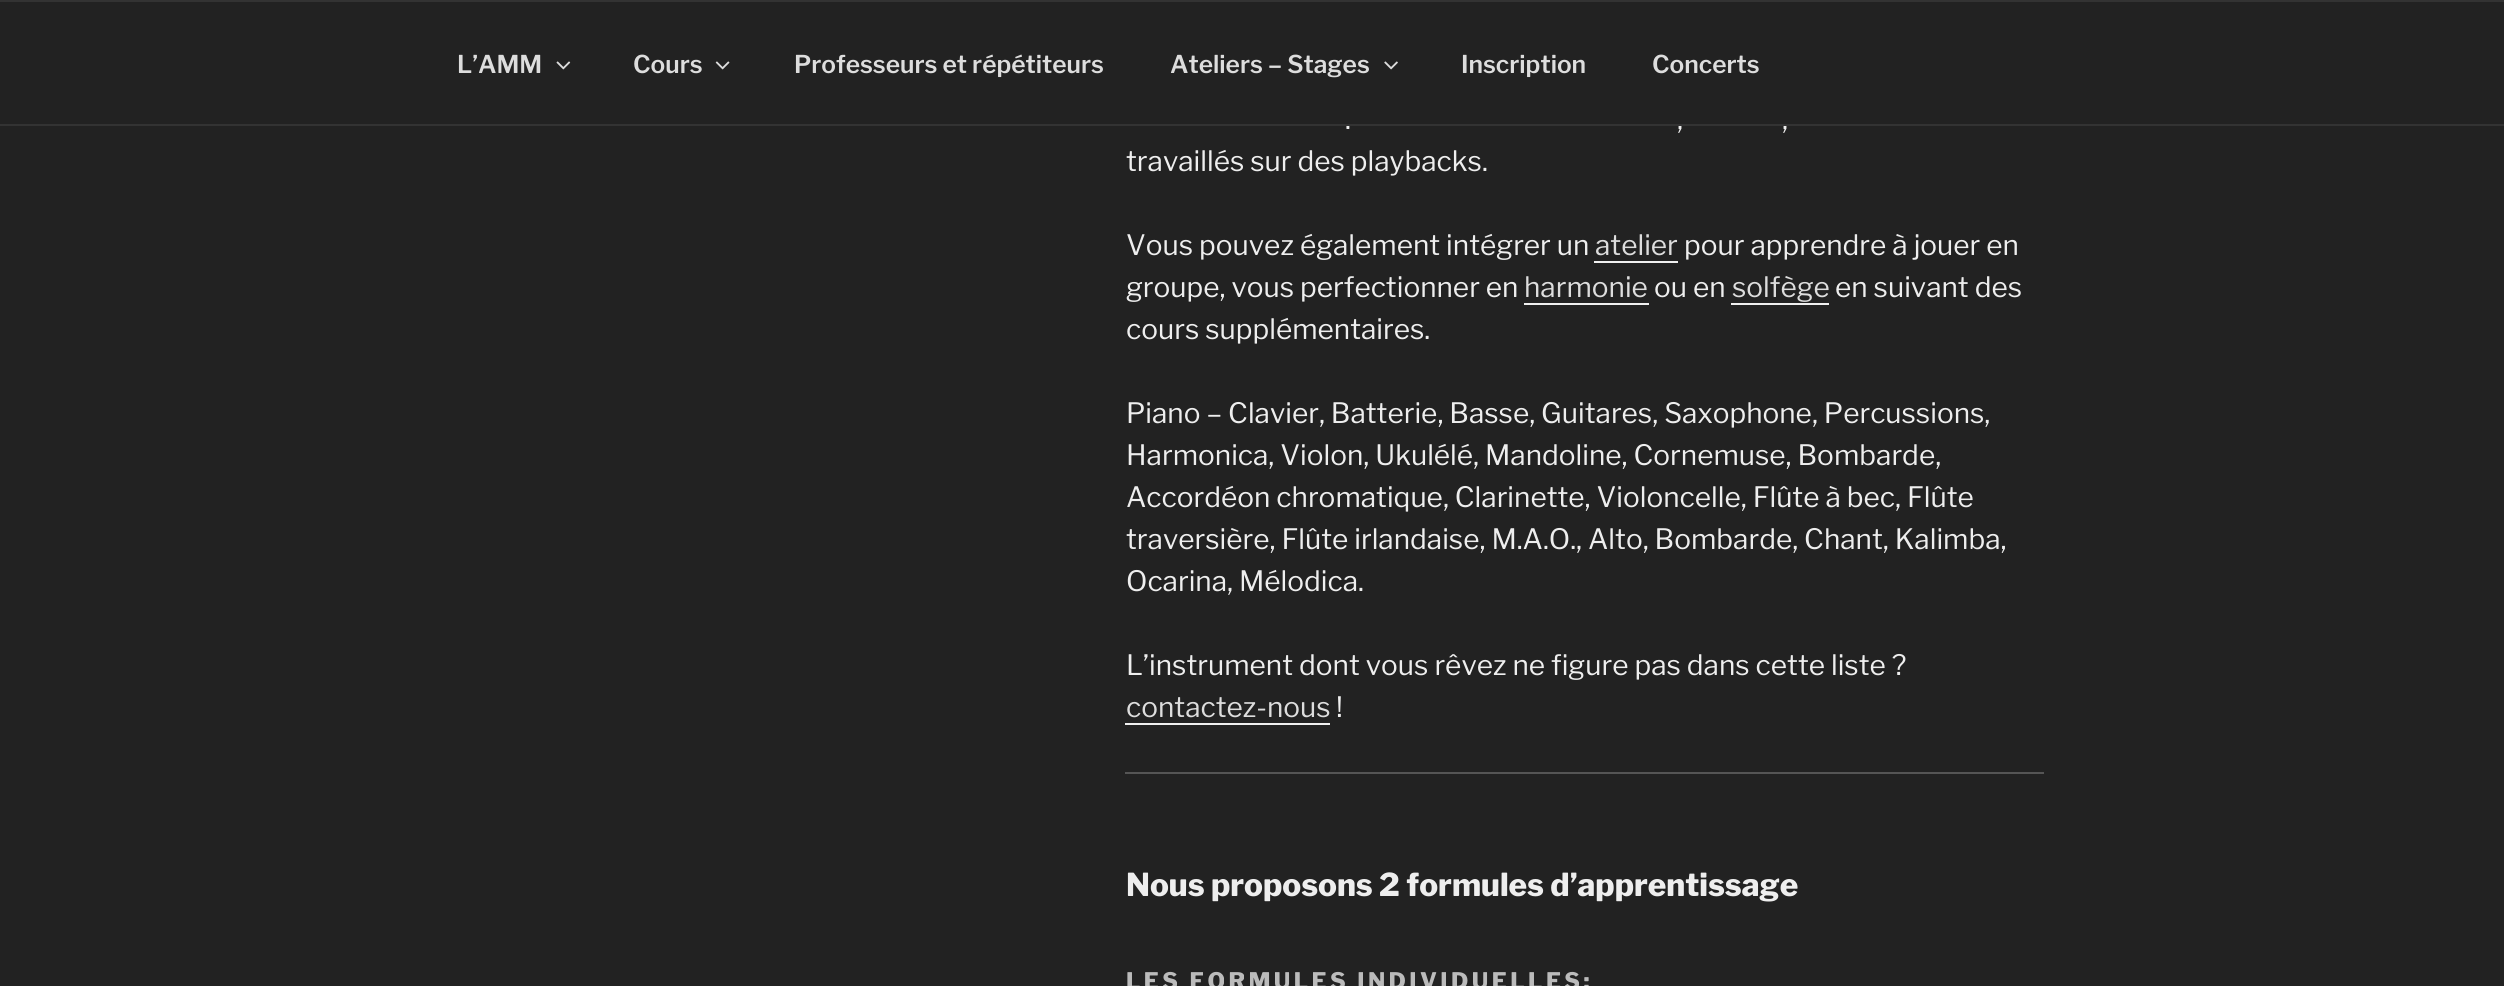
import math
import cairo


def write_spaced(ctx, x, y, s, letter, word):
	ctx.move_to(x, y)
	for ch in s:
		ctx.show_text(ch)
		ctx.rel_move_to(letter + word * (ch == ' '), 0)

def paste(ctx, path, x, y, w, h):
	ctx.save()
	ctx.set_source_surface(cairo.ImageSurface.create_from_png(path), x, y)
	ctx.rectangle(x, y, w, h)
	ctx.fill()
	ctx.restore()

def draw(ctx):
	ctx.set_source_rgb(0.133, 0.133, 0.133)
	ctx.paint()
	ctx.set_source_rgb(0.2, 0.2, 0.2)
	ctx.rectangle(0, 0, 2504, 2)
	ctx.fill()
	ctx.select_font_face('Libre Franklin Thin')
	ctx.set_font_size(28)
	ctx.set_source_rgb(0.933, 0.933, 0.933)
	for x, y, s in [
		(1345, 129, '.'),
		(1677, 129, ','),
		(1782, 129, ','),
	]:
		ctx.move_to(x, y)
		ctx.show_text(s)
	ctx.set_source_rgb(0.2, 0.2, 0.2)
	ctx.rectangle(0, 124, 2504, 2)
	ctx.fill()
	ctx.select_font_face('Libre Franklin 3 Thin')
	ctx.set_font_size(24.5)
	ctx.set_source_rgb(0.867, 0.867, 0.867)
	ctx.move_to(457, 73)
	ctx.show_text('L’AMM')
	paste(ctx, 'media/1.png', 556, 61, 15, 9)
	ctx.move_to(633, 73)
	ctx.show_text('Cours')
	paste(ctx, 'media/2.png', 715, 61, 15, 9)
	ctx.move_to(794, 73)
	ctx.show_text('Professeurs et répétiteurs')
	ctx.move_to(1170, 73)
	ctx.show_text('Ateliers – Stages')
	paste(ctx, 'media/3.png', 1384, 61, 14, 9)
	ctx.move_to(1461, 73)
	ctx.show_text('Inscription')
	ctx.move_to(1652, 73)
	ctx.show_text('Concerts')
	ctx.select_font_face('Libre Franklin Thin')
	ctx.set_font_size(28)
	ctx.set_source_rgb(0.933, 0.933, 0.933)
	ctx.move_to(1126, 171)
	ctx.show_text('travaillés sur des playbacks.')
	ctx.move_to(1126, 255)
	ctx.show_text('Vous pouvez également intégrer un')
	ctx.set_source_rgb(0.867, 0.867, 0.867)
	ctx.move_to(1595, 255)
	ctx.show_text('atelier')
	ctx.set_source_rgb(0.941, 0.941, 0.941)
	ctx.rectangle(1594, 261, 84, 2)
	ctx.fill()
	ctx.set_source_rgb(0.933, 0.933, 0.933)
	ctx.move_to(1684, 255)
	ctx.show_text('pour apprendre à jouer en')
	ctx.move_to(1126, 297)
	ctx.show_text('groupe, vous perfectionner en')
	ctx.set_source_rgb(0.867, 0.867, 0.867)
	ctx.move_to(1524, 297)
	ctx.show_text('harmonie')
	ctx.set_source_rgb(0.941, 0.941, 0.941)
	ctx.rectangle(1524, 303, 125, 2)
	ctx.fill()
	ctx.set_source_rgb(0.933, 0.933, 0.933)
	ctx.move_to(1654, 297)
	ctx.show_text('ou en')
	ctx.set_source_rgb(0.867, 0.867, 0.867)
	ctx.move_to(1732, 297)
	ctx.show_text('solfège')
	ctx.set_source_rgb(0.941, 0.941, 0.941)
	ctx.rectangle(1731, 303, 98, 2)
	ctx.fill()
	ctx.set_source_rgb(0.933, 0.933, 0.933)
	for x, y, s in [
		(1835, 297, 'en suivant des'),
		(1126, 339, 'cours supplémentaires.'),
		(1126, 423, 'Piano – Clavier, Batterie, Basse, Guitares, Saxophone, Percussions,'),
		(1126, 465, 'Harmonica, Violon, Ukulélé, Mandoline, Cornemuse, Bombarde,'),
		(1126, 507, 'Accordéon chromatique, Clarinette, Violoncelle, Flûte à bec, Flûte'),
		(1126, 549, 'traversière, Flûte irlandaise, M.A.O., Alto, Bombarde, Chant, Kalimba,'),
		(1126, 591, 'Ocarina, Mélodica.'),
		(1126, 675, 'L’instrument dont vous rêvez ne figure pas dans cette liste ?'),
	]:
		ctx.move_to(x, y)
		ctx.show_text(s)
	ctx.set_source_rgb(0.867, 0.867, 0.867)
	ctx.move_to(1126, 717)
	ctx.show_text('contactez-nous')
	ctx.set_source_rgb(0.941, 0.941, 0.941)
	ctx.rectangle(1125, 723, 205, 2)
	ctx.fill()
	ctx.set_source_rgb(0.933, 0.933, 0.933)
	ctx.move_to(1336, 717)
	ctx.show_text('!')
	ctx.set_source_rgb(0.333, 0.333, 0.333)
	ctx.rectangle(1125, 772, 919, 2)
	ctx.fill()
	ctx.select_font_face('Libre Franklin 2 Thin')
	ctx.set_font_size(31.5)
	ctx.set_source_rgb(0.933, 0.933, 0.933)
	ctx.move_to(1126, 896)
	ctx.show_text('Nous proposons 2 formules d’apprentissage')
	ctx.set_font_size(22.75)
	ctx.set_source_rgb(0.733, 0.733, 0.733)
	write_spaced(ctx, 1126, 989, 'LES FORMULES INDIVIDUELLES:', 3.4, 0)


surface = cairo.ImageSurface(cairo.FORMAT_RGB24, 2504, 986)
ctx = cairo.Context(surface)
options = cairo.FontOptions()
options.set_hint_metrics(cairo.HINT_METRICS_OFF)
options.set_hint_style(cairo.HINT_STYLE_NONE)
ctx.set_font_options(options)
ctx.set_miter_limit(4)
draw(ctx)
surface.write_to_png('image.png')
